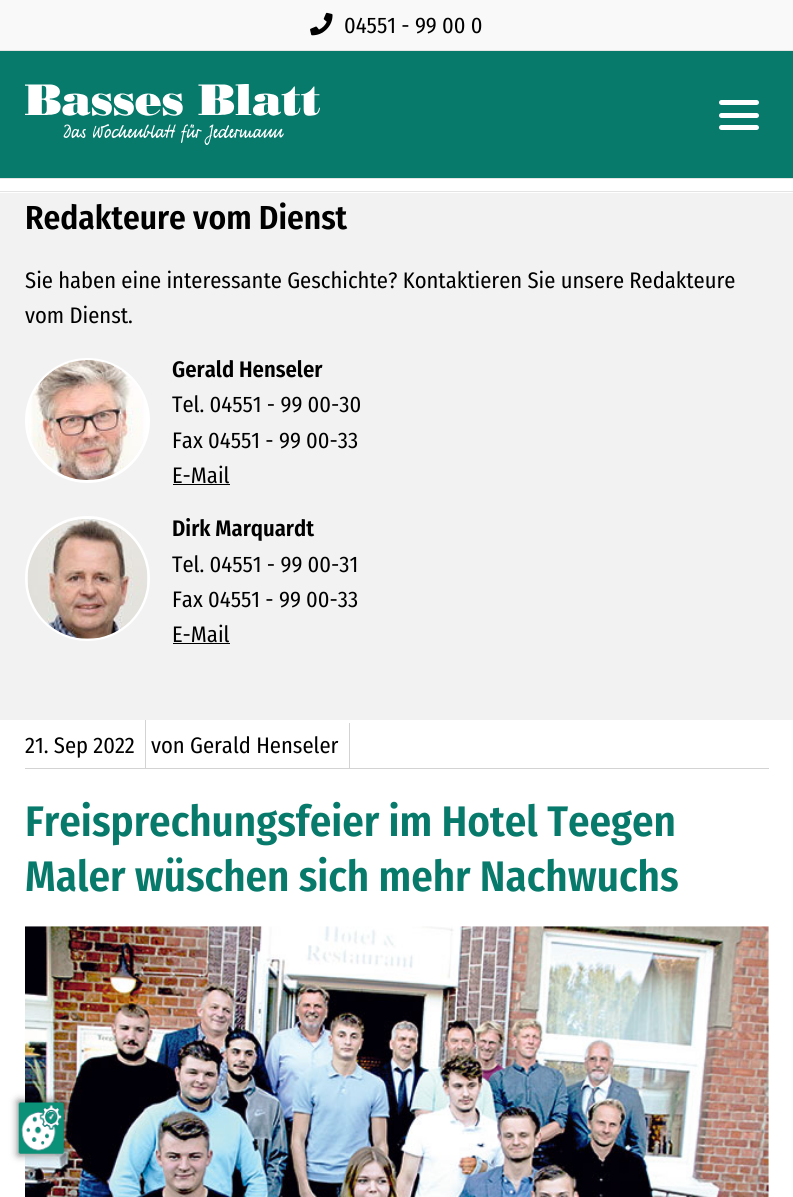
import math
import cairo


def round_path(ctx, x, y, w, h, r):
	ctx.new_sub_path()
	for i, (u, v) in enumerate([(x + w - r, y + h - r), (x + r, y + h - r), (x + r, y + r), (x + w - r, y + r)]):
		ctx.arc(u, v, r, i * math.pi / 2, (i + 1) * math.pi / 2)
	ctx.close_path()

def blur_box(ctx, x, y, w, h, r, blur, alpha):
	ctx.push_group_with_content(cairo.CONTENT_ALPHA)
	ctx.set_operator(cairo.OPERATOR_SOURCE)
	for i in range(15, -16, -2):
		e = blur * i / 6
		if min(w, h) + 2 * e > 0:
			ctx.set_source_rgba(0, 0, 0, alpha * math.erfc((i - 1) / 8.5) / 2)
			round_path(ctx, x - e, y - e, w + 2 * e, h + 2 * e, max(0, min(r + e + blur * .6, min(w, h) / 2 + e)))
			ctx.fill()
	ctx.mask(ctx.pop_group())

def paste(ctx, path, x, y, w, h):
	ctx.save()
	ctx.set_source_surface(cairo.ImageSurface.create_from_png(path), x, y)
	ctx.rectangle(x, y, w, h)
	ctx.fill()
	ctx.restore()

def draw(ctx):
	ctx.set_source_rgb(1, 1, 1)
	ctx.paint()
	ctx.set_source_rgb(0.976, 0.976, 0.976)
	ctx.rectangle(0, 0, 793, 50)
	ctx.fill()
	paste(ctx, 'media/1.png', 310, 12, 23, 24)
	ctx.select_font_face('Fira Sans Condensed')
	ctx.set_font_size(22.5)
	ctx.set_source_rgb(0, 0, 0)
	ctx.move_to(344, 33)
	ctx.show_text('04551 - 99 00 0')
	ctx.set_source_rgb(0.035, 0.478, 0.42)
	ctx.rectangle(0, 51, 793, 127)
	ctx.fill()
	ctx.set_source_rgb(0.894, 0.894, 0.894)
	ctx.rectangle(0, 50, 793, 1)
	ctx.rectangle(0, 178, 793, 1)
	ctx.fill()
	paste(ctx, 'media/2.png', 25, 84, 295, 61)
	ctx.set_source_rgb(1, 1, 1)
	round_path(ctx, 719, 100, 40, 5, 2.5)
	ctx.fill()
	round_path(ctx, 719, 113, 40, 5, 2.5)
	ctx.fill()
	round_path(ctx, 719, 125, 40, 5, 2.5)
	ctx.fill()
	ctx.set_source_rgb(0.894, 0.894, 0.894)
	ctx.rectangle(0, 191, 793, 1)
	ctx.fill()
	ctx.set_source_rgb(0.949, 0.949, 0.949)
	ctx.rectangle(0, 193, 793, 527)
	ctx.fill()
	ctx.select_font_face('Fira Sans Condensed SemiBold')
	ctx.set_font_size(33.25)
	ctx.set_source_rgb(0, 0, 0)
	ctx.move_to(25, 229)
	ctx.show_text('Redakteure vom Dienst')
	ctx.select_font_face('Fira Sans Condensed')
	ctx.set_font_size(22.5)
	ctx.move_to(25, 288)
	ctx.show_text('Sie haben eine interessante Geschichte? Kontaktieren Sie unsere Redakteure')
	ctx.move_to(25, 323)
	ctx.show_text('vom Dienst.')
	ctx.new_path()
	ctx.arc(87.5, 420.5, 61, 0, 2 * math.pi)
	ctx.set_source_rgb(1, 1, 1)
	ctx.set_line_width(3)
	ctx.stroke()
	paste(ctx, 'media/3.png', 28, 360, 119, 120)
	ctx.select_font_face('Fira Sans Condensed SemiBold')
	ctx.set_source_rgb(0, 0, 0)
	ctx.move_to(172, 377)
	ctx.show_text('Gerald Henseler')
	ctx.select_font_face('Fira Sans Condensed')
	for x, y, s in [
		(172, 412, 'Tel. 04551 - 99 00-30'),
		(172, 448, 'Fax 04551 - 99 00-33'),
		(172, 483, 'E-Mail'),
	]:
		ctx.move_to(x, y)
		ctx.show_text(s)
	ctx.rectangle(173, 484, 57, 1)
	ctx.fill()
	ctx.arc(87.5, 578.5, 61, 0, 2 * math.pi)
	ctx.set_source_rgb(1, 1, 1)
	ctx.stroke()
	paste(ctx, 'media/4.png', 27, 519, 121, 120)
	ctx.select_font_face('Fira Sans Condensed SemiBold')
	ctx.set_source_rgb(0, 0, 0)
	ctx.move_to(172, 536)
	ctx.show_text('Dirk Marquardt')
	ctx.select_font_face('Fira Sans Condensed')
	for x, y, s in [
		(172, 572, 'Tel. 04551 - 99 00-31'),
		(172, 607, 'Fax 04551 - 99 00-33'),
		(172, 642, 'E-Mail'),
	]:
		ctx.move_to(x, y)
		ctx.show_text(s)
	ctx.rectangle(173, 643, 57, 1)
	ctx.fill()
	ctx.set_source_rgb(0.827, 0.827, 0.827)
	ctx.rectangle(25, 768, 744, 1)
	ctx.rectangle(145, 720, 1, 48)
	ctx.fill()
	ctx.set_source_rgb(0, 0, 0)
	ctx.move_to(25, 753)
	ctx.show_text('21. Sep 2022')
	ctx.set_source_rgb(0.827, 0.827, 0.827)
	ctx.rectangle(349, 723, 1, 45)
	ctx.fill()
	ctx.set_source_rgb(0, 0, 0)
	ctx.move_to(151, 753)
	ctx.show_text('von Gerald Henseler')
	ctx.select_font_face('Fira Sans Condensed SemiBold')
	ctx.set_font_size(42.75)
	ctx.set_source_rgb(0.035, 0.478, 0.42)
	ctx.move_to(25, 836)
	ctx.show_text('Freisprechungsfeier im Hotel Teegen')
	ctx.move_to(25, 891)
	ctx.show_text('Maler wüschen sich mehr Nachwuchs')
	paste(ctx, 'media/5.png', 25, 926, 744, 271)
	ctx.set_source_rgb(0, 0, 0)
	blur_box(ctx, 18, 1101, 47, 54, 0, 4, 0.5)
	paste(ctx, 'media/6.png', 18, 1102, 46, 52)


surface = cairo.ImageSurface(cairo.FORMAT_RGB24, 793, 1197)
ctx = cairo.Context(surface)
options = cairo.FontOptions()
options.set_hint_metrics(cairo.HINT_METRICS_OFF)
options.set_hint_style(cairo.HINT_STYLE_NONE)
ctx.set_font_options(options)
ctx.set_miter_limit(4)
draw(ctx)
surface.write_to_png('image.png')
